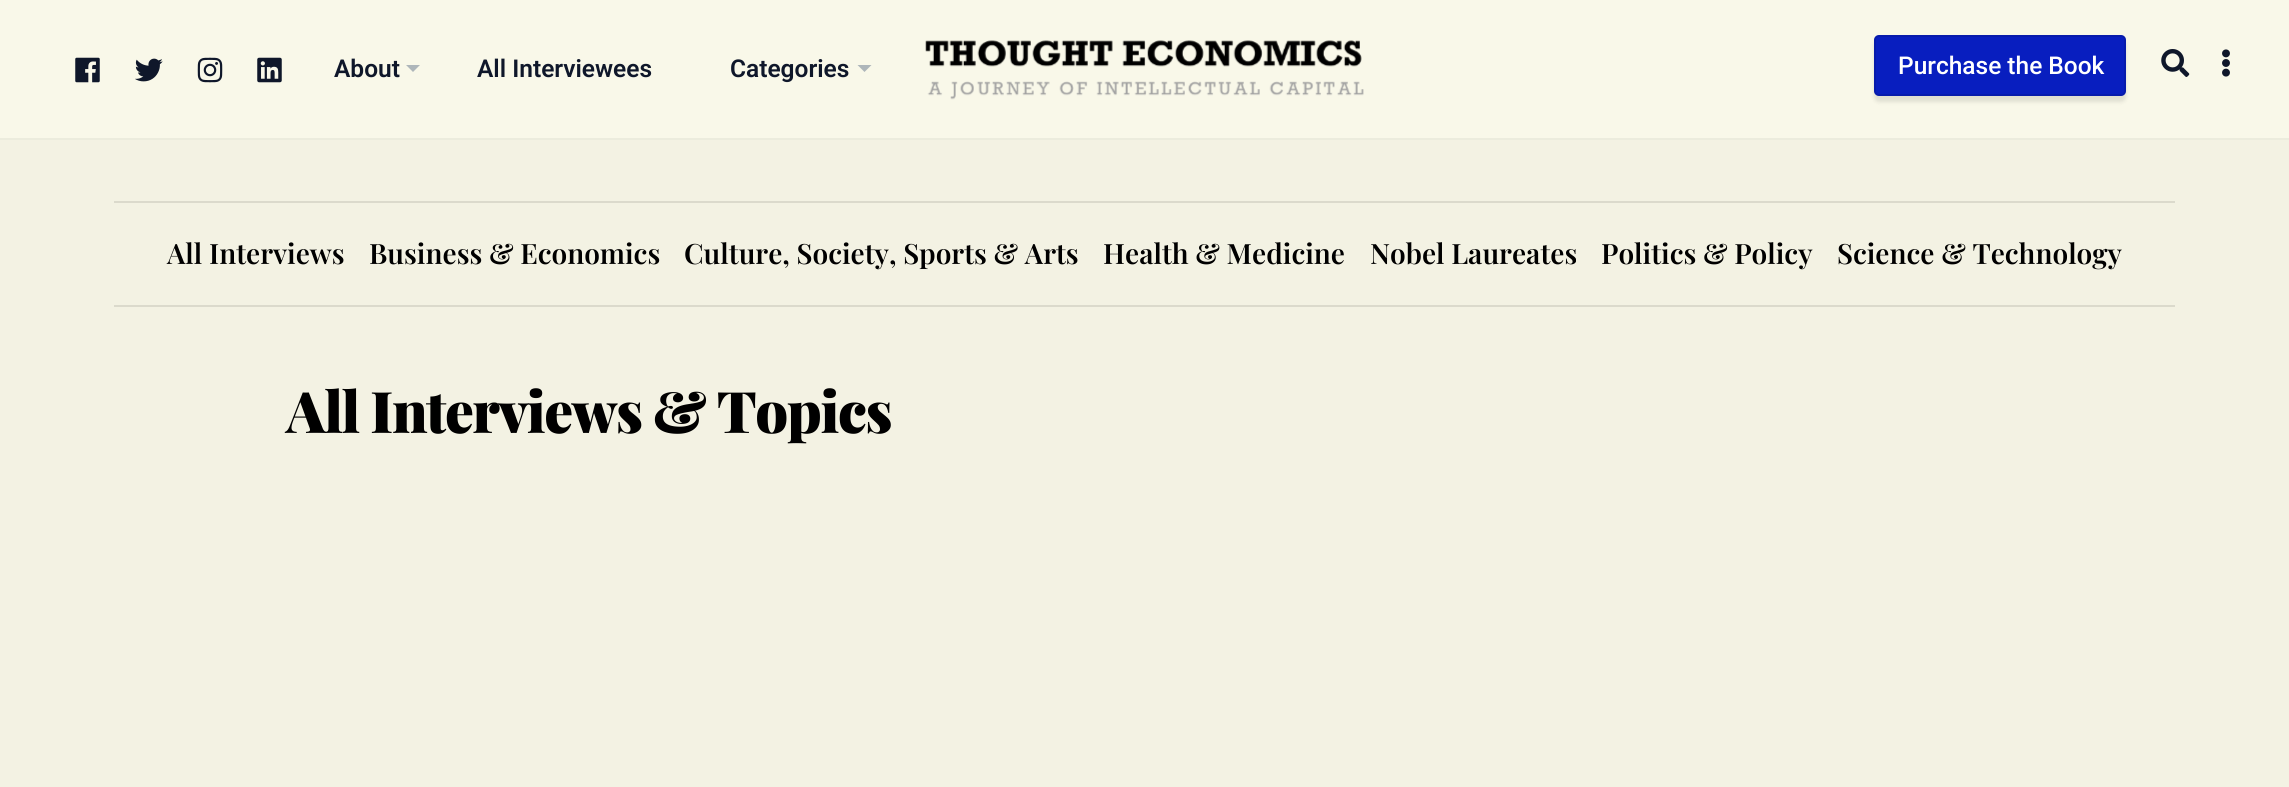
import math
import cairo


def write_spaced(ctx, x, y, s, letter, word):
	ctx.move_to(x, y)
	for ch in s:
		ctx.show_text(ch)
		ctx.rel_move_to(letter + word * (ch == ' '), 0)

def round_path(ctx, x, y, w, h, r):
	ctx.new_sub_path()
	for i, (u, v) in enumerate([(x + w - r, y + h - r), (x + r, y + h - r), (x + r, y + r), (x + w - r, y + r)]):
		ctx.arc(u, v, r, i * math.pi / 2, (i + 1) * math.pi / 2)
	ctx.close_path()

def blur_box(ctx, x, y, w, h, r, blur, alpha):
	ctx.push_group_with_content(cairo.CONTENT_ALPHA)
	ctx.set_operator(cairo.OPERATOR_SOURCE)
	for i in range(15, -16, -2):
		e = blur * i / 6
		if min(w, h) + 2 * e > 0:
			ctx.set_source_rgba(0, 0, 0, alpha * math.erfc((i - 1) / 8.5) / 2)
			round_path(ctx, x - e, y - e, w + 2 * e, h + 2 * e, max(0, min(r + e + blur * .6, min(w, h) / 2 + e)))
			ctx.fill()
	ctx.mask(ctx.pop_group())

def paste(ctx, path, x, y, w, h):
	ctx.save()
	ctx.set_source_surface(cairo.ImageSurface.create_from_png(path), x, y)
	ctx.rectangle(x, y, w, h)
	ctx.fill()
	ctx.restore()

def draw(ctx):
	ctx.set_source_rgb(0.953, 0.949, 0.89)
	ctx.paint()
	ctx.set_source_rgb(0.973, 0.969, 0.914)
	ctx.rectangle(0, 0, 2289, 138)
	ctx.fill()
	ctx.set_source_rgb(0.925, 0.922, 0.867)
	ctx.rectangle(0, 138, 2289, 2)
	ctx.fill()
	paste(ctx, 'media/1.png', 75, 57, 25, 26)
	paste(ctx, 'media/2.png', 135, 58, 28, 24)
	paste(ctx, 'media/3.png', 197, 57, 26, 26)
	paste(ctx, 'media/4.png', 257, 57, 25, 26)
	ctx.select_font_face('Roboto SemiBold')
	ctx.set_font_size(24.5)
	ctx.set_source_rgb(0.059, 0.09, 0.165)
	ctx.move_to(334, 77)
	ctx.show_text('About')
	ctx.set_source_rgb(0.682, 0.714, 0.729)
	ctx.new_path()
	ctx.move_to(406, 65)
	ctx.line_to(420, 65)
	ctx.line_to(413, 72)
	ctx.close_path()
	ctx.fill()
	ctx.set_source_rgb(0.059, 0.09, 0.165)
	ctx.move_to(477, 77)
	ctx.show_text('All Interviewees')
	ctx.move_to(730, 77)
	ctx.show_text('Categories')
	ctx.set_source_rgb(0.682, 0.714, 0.729)
	ctx.new_path()
	ctx.move_to(857.5, 65)
	ctx.line_to(871.5, 65)
	ctx.line_to(864.5, 72)
	ctx.close_path()
	ctx.fill()
	paste(ctx, 'media/5.png', 925, 40, 439, 60)
	ctx.set_source_rgb(0, 0, 0)
	blur_box(ctx, 1874, 40, 252, 62, 5, 2, 0.1)
	ctx.set_source_rgb(0.035, 0.118, 0.749)
	round_path(ctx, 1874, 35, 252, 61, 5)
	ctx.fill()
	round_path(ctx, 1875, 36, 250, 59, 4)
	ctx.set_source_rgba(0, 0, 0, 0.1)
	ctx.stroke()
	ctx.select_font_face('Roboto Medium')
	ctx.set_source_rgb(1, 1, 1)
	ctx.move_to(1898, 74)
	ctx.show_text('Purchase the Book')
	paste(ctx, 'media/6.png', 2161, 49, 29, 28)
	paste(ctx, 'media/7.png', 2222, 49, 8, 28)
	ctx.set_source_rgb(0.859, 0.855, 0.8)
	ctx.rectangle(114, 201, 2061, 2)
	ctx.fill()
	ctx.rectangle(114, 305, 2061, 2)
	ctx.fill()
	ctx.select_font_face('Playfair Display SemiBold')
	ctx.set_font_size(28)
	ctx.set_source_rgb(0, 0, 0)
	for x, y, s in [
		(167, 264, 'All Interviews'),
		(369, 264, 'Business & Economics'),
		(684, 264, 'Culture, Society, Sports & Arts'),
		(1103, 264, 'Health & Medicine'),
		(1370, 264, 'Nobel Laureates'),
		(1601, 264, 'Politics & Policy'),
		(1837, 264, 'Science & Technology'),
	]:
		ctx.move_to(x, y)
		ctx.show_text(s)
	ctx.select_font_face('Playfair Display Black')
	ctx.set_font_size(57.25)
	write_spaced(ctx, 286, 433, 'All Interviews & Topics', -1.4, 0)


surface = cairo.ImageSurface(cairo.FORMAT_RGB24, 2289, 787)
ctx = cairo.Context(surface)
options = cairo.FontOptions()
options.set_hint_metrics(cairo.HINT_METRICS_OFF)
options.set_hint_style(cairo.HINT_STYLE_NONE)
ctx.set_font_options(options)
ctx.set_miter_limit(4)
draw(ctx)
surface.write_to_png('image.png')
